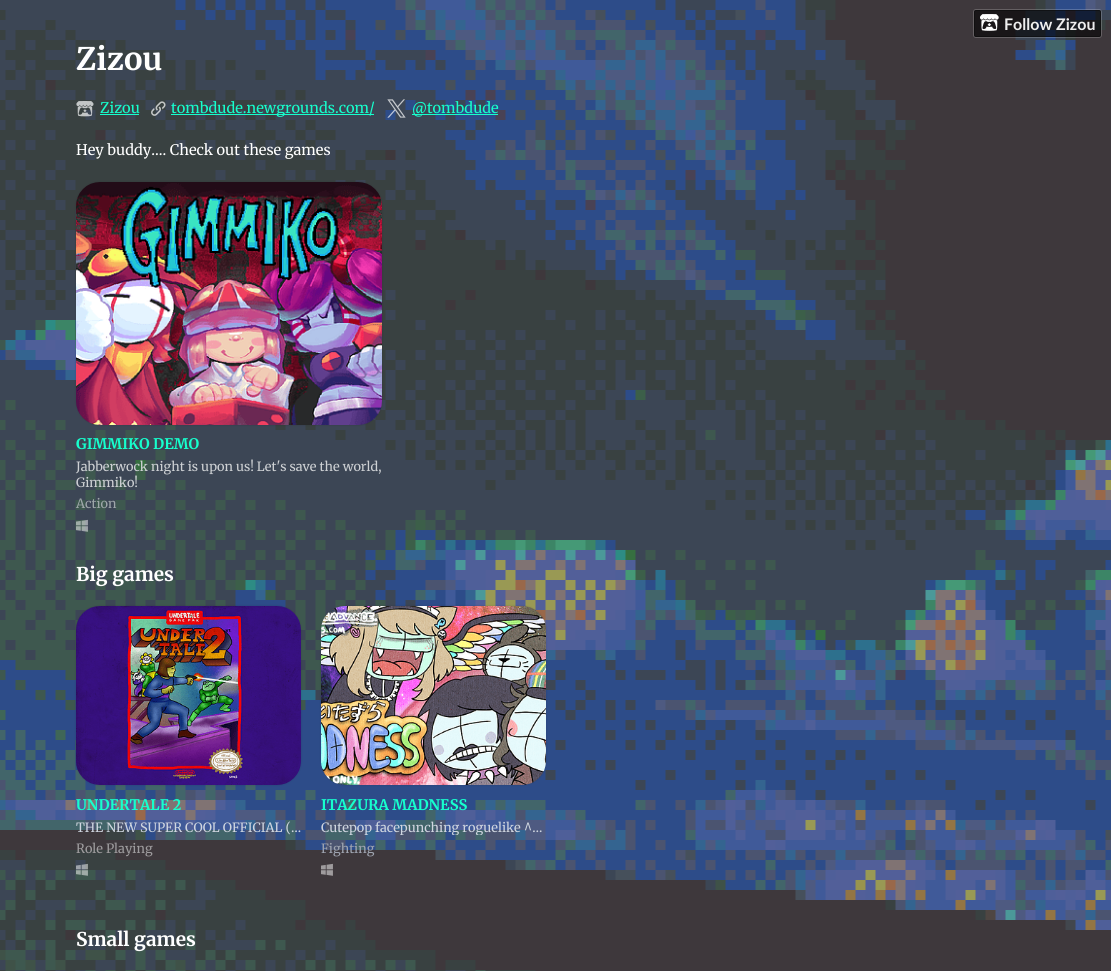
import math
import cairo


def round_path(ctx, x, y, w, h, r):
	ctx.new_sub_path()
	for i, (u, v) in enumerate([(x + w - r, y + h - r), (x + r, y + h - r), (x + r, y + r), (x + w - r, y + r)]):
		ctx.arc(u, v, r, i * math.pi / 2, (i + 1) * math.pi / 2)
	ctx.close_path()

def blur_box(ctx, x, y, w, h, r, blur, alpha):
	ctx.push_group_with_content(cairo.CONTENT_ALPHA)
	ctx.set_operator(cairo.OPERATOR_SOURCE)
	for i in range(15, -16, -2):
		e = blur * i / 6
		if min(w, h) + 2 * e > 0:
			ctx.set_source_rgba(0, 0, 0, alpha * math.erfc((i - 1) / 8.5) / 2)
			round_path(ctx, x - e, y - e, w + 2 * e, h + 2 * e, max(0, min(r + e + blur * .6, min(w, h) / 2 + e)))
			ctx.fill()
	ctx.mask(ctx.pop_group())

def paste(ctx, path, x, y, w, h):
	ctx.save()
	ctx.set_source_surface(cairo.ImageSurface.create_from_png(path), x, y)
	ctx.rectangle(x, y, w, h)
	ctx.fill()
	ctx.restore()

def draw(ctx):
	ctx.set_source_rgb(1, 1, 1)
	ctx.paint()
	paste(ctx, 'media/2.png', 0, 0, 1111, 971)
	round_path(ctx, 973.5, 9.5, 128, 28, 2.5)
	ctx.set_source_rgba(1, 1, 1, 0.2)
	ctx.set_line_width(1)
	ctx.stroke()
	ctx.set_source_rgba(0, 0, 0, 0.6)
	round_path(ctx, 974, 10, 127, 27, 2)
	ctx.fill()
	round_path(ctx, 974.5, 10.5, 126, 26, 1.5)
	ctx.set_source_rgba(0.039, 0.039, 0.039, 0.5)
	ctx.stroke()
	paste(ctx, 'media/1.png', 980, 14, 19, 17)
	ctx.select_font_face('Lato', cairo.FONT_SLANT_NORMAL, cairo.FONT_WEIGHT_BOLD)
	ctx.set_font_size(16)
	ctx.set_source_rgb(0.933, 0.933, 0.933)
	ctx.move_to(1004, 30)
	ctx.show_text('Follow Zizou')
	ctx.select_font_face('Merriweather', cairo.FONT_SLANT_NORMAL, cairo.FONT_WEIGHT_BOLD)
	ctx.set_font_size(31)
	ctx.set_source_rgb(1, 1, 1)
	ctx.move_to(76, 70)
	ctx.show_text('Zizou')
	paste(ctx, 'media/3.png', 76, 101, 18, 16)
	ctx.select_font_face('Merriweather')
	ctx.set_font_size(14.6)
	ctx.set_source_rgb(0.086, 1, 0.804)
	ctx.move_to(100, 113)
	ctx.show_text('Zizou')
	ctx.rectangle(100, 114, 39, 1)
	ctx.fill()
	paste(ctx, 'media/4.png', 151, 101, 15, 15)
	ctx.rectangle(171, 114, 203, 1)
	ctx.fill()
	ctx.move_to(171, 113)
	ctx.show_text('tombdude.newgrounds.com/')
	paste(ctx, 'media/5.png', 387, 99, 19, 19)
	ctx.rectangle(412, 114, 86, 1)
	ctx.fill()
	ctx.move_to(412, 113)
	ctx.show_text('@tombdude')
	ctx.set_source_rgb(1, 1, 1)
	ctx.move_to(76, 155)
	ctx.show_text('Hey buddy.... Check out these games')
	ctx.set_source_rgb(0, 0, 0)
	blur_box(ctx, 76, 182, 306, 243, 24, 1, 0.15)
	paste(ctx, 'media/6.png', 76, 182, 306, 243)
	ctx.select_font_face('Merriweather', cairo.FONT_SLANT_NORMAL, cairo.FONT_WEIGHT_BOLD)
	ctx.set_source_rgb(0.086, 1, 0.804)
	ctx.move_to(76, 449)
	ctx.show_text('GIMMIKO DEMO')
	ctx.select_font_face('Merriweather')
	ctx.set_font_size(12.75)
	ctx.set_source_rgb(0.808, 0.82, 0.831)
	ctx.move_to(76, 471)
	ctx.show_text('Jabberwock night is upon us! Let\'s save the world,')
	ctx.move_to(76, 487)
	ctx.show_text('Gimmiko!')
	ctx.set_source_rgb(0.62, 0.655, 0.663)
	ctx.move_to(76, 508)
	ctx.show_text('Action')
	paste(ctx, 'media/7.png', 76, 519, 12, 13)
	ctx.select_font_face('Merriweather', cairo.FONT_SLANT_NORMAL, cairo.FONT_WEIGHT_BOLD)
	ctx.set_font_size(19)
	ctx.set_source_rgb(1, 1, 1)
	ctx.move_to(76, 581)
	ctx.show_text('Big games')
	ctx.set_source_rgb(0, 0, 0)
	blur_box(ctx, 76, 606, 225, 179, 24, 1, 0.15)
	paste(ctx, 'media/8.png', 76, 606, 225, 179)
	ctx.set_font_size(14.6)
	ctx.set_source_rgb(0.086, 1, 0.804)
	ctx.move_to(76, 810)
	ctx.show_text('UNDERTALE 2')
	ctx.select_font_face('Merriweather')
	ctx.set_font_size(12.75)
	ctx.set_source_rgb(0.816, 0.839, 0.878)
	ctx.move_to(76, 832)
	ctx.show_text('THE NEW SUPER COOL OFFICIAL (…')
	ctx.set_source_rgb(0.62, 0.612, 0.62)
	ctx.move_to(76, 853)
	ctx.show_text('Role Playing')
	paste(ctx, 'media/9.png', 76, 863, 12, 13)
	ctx.set_source_rgb(0, 0, 0)
	blur_box(ctx, 321, 606, 225, 179, 24, 1, 0.15)
	paste(ctx, 'media/10.png', 321, 606, 225, 179)
	ctx.select_font_face('Merriweather', cairo.FONT_SLANT_NORMAL, cairo.FONT_WEIGHT_BOLD)
	ctx.set_font_size(14.6)
	ctx.set_source_rgb(0.086, 1, 0.804)
	ctx.move_to(321, 810)
	ctx.show_text('ITAZURA MADNESS')
	ctx.save()
	ctx.rectangle(321, 819, 225, 16)
	ctx.clip()
	ctx.select_font_face('Merriweather')
	ctx.set_font_size(12.75)
	ctx.set_source_rgb(0.816, 0.839, 0.878)
	ctx.move_to(321, 832)
	ctx.show_text('Cutepop facepunching roguelike ^…')
	ctx.restore()
	ctx.select_font_face('Merriweather')
	ctx.set_font_size(12.75)
	ctx.set_source_rgb(0.62, 0.643, 0.69)
	ctx.move_to(321, 853)
	ctx.show_text('Fighting')
	paste(ctx, 'media/11.png', 321, 863, 12, 13)
	ctx.select_font_face('Merriweather', cairo.FONT_SLANT_NORMAL, cairo.FONT_WEIGHT_BOLD)
	ctx.set_font_size(19)
	ctx.set_source_rgb(1, 1, 1)
	ctx.move_to(76, 946)
	ctx.show_text('Small games')


surface = cairo.ImageSurface(cairo.FORMAT_RGB24, 1111, 971)
ctx = cairo.Context(surface)
options = cairo.FontOptions()
options.set_hint_metrics(cairo.HINT_METRICS_OFF)
options.set_hint_style(cairo.HINT_STYLE_NONE)
ctx.set_font_options(options)
ctx.set_miter_limit(4)
draw(ctx)
surface.write_to_png('image.png')
